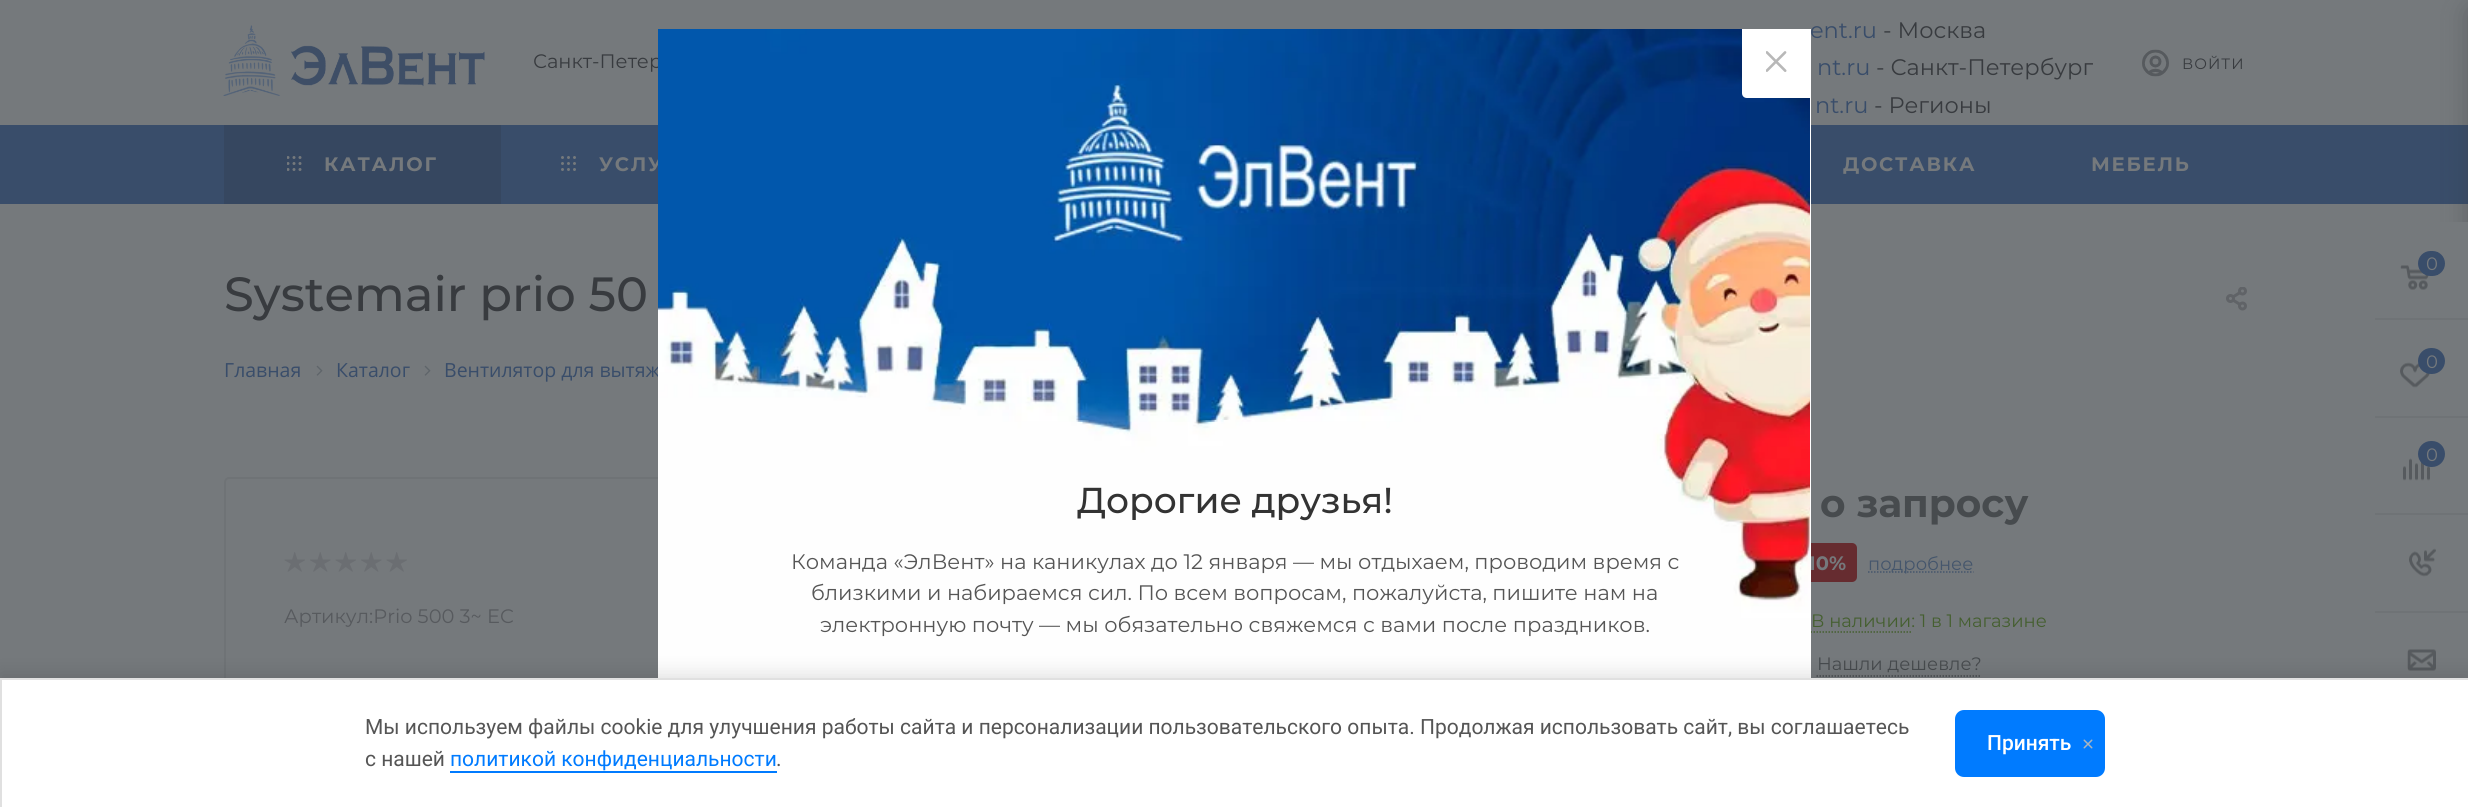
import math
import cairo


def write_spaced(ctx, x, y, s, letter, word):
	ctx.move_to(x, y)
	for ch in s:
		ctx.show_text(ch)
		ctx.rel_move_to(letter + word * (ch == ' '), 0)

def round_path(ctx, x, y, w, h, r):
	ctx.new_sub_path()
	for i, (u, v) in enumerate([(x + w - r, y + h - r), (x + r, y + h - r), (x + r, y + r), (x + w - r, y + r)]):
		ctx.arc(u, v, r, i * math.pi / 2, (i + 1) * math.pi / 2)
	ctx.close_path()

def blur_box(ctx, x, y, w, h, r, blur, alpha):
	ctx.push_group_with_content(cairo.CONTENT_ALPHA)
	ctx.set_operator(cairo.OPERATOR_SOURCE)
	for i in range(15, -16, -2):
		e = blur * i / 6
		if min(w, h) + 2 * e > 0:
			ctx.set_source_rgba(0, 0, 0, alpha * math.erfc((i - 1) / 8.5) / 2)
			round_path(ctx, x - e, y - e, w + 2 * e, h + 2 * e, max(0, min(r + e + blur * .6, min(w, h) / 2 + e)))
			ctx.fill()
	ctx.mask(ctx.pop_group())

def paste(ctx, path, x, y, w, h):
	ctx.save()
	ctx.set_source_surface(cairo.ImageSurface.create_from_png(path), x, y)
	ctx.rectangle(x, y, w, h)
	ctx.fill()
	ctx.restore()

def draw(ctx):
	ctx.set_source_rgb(0.459, 0.475, 0.486)
	ctx.paint()
	paste(ctx, 'media/1.png', 223, 25, 262, 71)
	ctx.select_font_face('Montserrat')
	ctx.set_font_size(19.5)
	ctx.set_source_rgb(0.22, 0.231, 0.247)
	ctx.move_to(533, 68)
	ctx.show_text('Санкт-Петер')
	ctx.set_font_size(22.5)
	ctx.set_source_rgb(0.224, 0.302, 0.416)
	ctx.move_to(1810, 38)
	ctx.show_text('ent.ru')
	ctx.set_source_rgb(0.22, 0.231, 0.247)
	ctx.move_to(1883, 38)
	ctx.show_text('- Москва')
	ctx.set_source_rgb(0.224, 0.302, 0.416)
	ctx.move_to(1817, 75)
	ctx.show_text('nt.ru')
	ctx.set_source_rgb(0.22, 0.231, 0.247)
	ctx.move_to(1876, 75)
	ctx.show_text('- Санкт-Петербург')
	ctx.set_source_rgb(0.224, 0.302, 0.416)
	ctx.move_to(1815, 113)
	ctx.show_text('nt.ru')
	ctx.set_source_rgb(0.22, 0.231, 0.247)
	ctx.move_to(1874, 113)
	ctx.show_text('- Регионы')
	paste(ctx, 'media/2.png', 2142, 49, 27, 28)
	ctx.set_font_size(15)
	write_spaced(ctx, 2182, 69, 'ВОЙТИ', 1, 0)
	ctx.set_source_rgb(0.224, 0.302, 0.416)
	ctx.rectangle(0, 125, 2468, 79)
	ctx.fill()
	ctx.set_source_rgb(0.212, 0.278, 0.376)
	ctx.rectangle(224, 125, 277, 79)
	ctx.fill()
	paste(ctx, 'media/3.png', 287, 156, 15, 15)
	ctx.select_font_face('Montserrat', cairo.FONT_SLANT_NORMAL, cairo.FONT_WEIGHT_BOLD)
	ctx.set_font_size(19.5)
	ctx.set_source_rgb(0.459, 0.475, 0.486)
	write_spaced(ctx, 324, 171, 'КАТАЛОГ', 1.75, 0)
	paste(ctx, 'media/4.png', 561, 156, 15, 15)
	for x, y, s in [
		(599, 171, 'УСЛУ'),
		(1843, 171, 'ДОСТАВКА'),
		(2091, 171, 'МЕБЕЛЬ'),
	]:
		write_spaced(ctx, x, y, s, 1.75, 0)
	ctx.select_font_face('Montserrat Medium')
	ctx.set_font_size(48)
	ctx.set_source_rgb(0.22, 0.231, 0.247)
	ctx.move_to(224, 311)
	ctx.show_text('Systemair prio 50')
	paste(ctx, 'media/5.png', 2226, 287, 21, 24)
	ctx.select_font_face('Open Sans')
	ctx.set_font_size(19.5)
	ctx.set_source_rgb(0.224, 0.302, 0.416)
	ctx.move_to(224, 377)
	ctx.show_text('Главная')
	paste(ctx, 'media/6.png', 316, 365, 7, 11)
	ctx.move_to(336, 377)
	ctx.show_text('Каталог')
	paste(ctx, 'media/6.png', 424, 365, 7, 11)
	ctx.move_to(444, 377)
	ctx.show_text('Вентилятор для вытяж')
	round_path(ctx, 225, 478, 1502, 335, 4)
	ctx.set_source_rgb(0.435, 0.451, 0.463)
	ctx.stroke()
	paste(ctx, 'media/7.png', 284, 552, 21, 20)
	paste(ctx, 'media/8.png', 310, 552, 21, 20)
	paste(ctx, 'media/7.png', 335, 552, 21, 20)
	paste(ctx, 'media/8.png', 361, 552, 21, 20)
	paste(ctx, 'media/7.png', 386, 552, 21, 20)
	ctx.select_font_face('Montserrat')
	ctx.set_source_rgb(0.341, 0.353, 0.369)
	ctx.move_to(284, 623)
	ctx.show_text('Артикул:Prio 500 3~ EC')
	ctx.select_font_face('Montserrat', cairo.FONT_SLANT_NORMAL, cairo.FONT_WEIGHT_BOLD)
	ctx.set_font_size(39)
	ctx.set_source_rgb(0.278, 0.294, 0.306)
	ctx.move_to(1820, 517)
	ctx.show_text('о запросу')
	ctx.set_source_rgb(0.4, 0.173, 0.188)
	round_path(ctx, 1788, 543, 69, 39, 5)
	ctx.fill()
	ctx.set_font_size(19.5)
	ctx.set_source_rgb(0.459, 0.475, 0.486)
	ctx.move_to(1808, 570)
	ctx.show_text('10%')
	ctx.new_path()
	ctx.move_to(1868, 572)
	ctx.line_to(1973.5, 572)
	ctx.set_source_rgb(0.271, 0.337, 0.424)
	ctx.set_line_width(1.5)
	ctx.set_dash([1.5, 1.5])
	ctx.stroke()
	ctx.select_font_face('Montserrat')
	ctx.set_font_size(18)
	ctx.move_to(1868, 570)
	ctx.show_text('подробнее')
	ctx.set_source_rgb(0.271, 0.373, 0.188)
	ctx.move_to(1811, 627)
	ctx.show_text('В наличии: 1 в 1 магазине')
	ctx.new_path()
	ctx.move_to(1810.5, 632)
	ctx.line_to(1911, 632)
	ctx.stroke()
	ctx.set_source_rgb(0.278, 0.294, 0.306)
	ctx.move_to(1817, 670)
	ctx.show_text('Нашли дешевле?')
	ctx.new_path()
	ctx.move_to(1816.5, 676)
	ctx.line_to(1981.5, 676)
	ctx.stroke()
	ctx.set_source_rgb(0.212, 0.224, 0.239)
	blur_box(ctx, 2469, 9, 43, 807, 3, 13.5, 0.4)
	ctx.set_source_rgb(0.459, 0.475, 0.486)
	ctx.new_path()
	ctx.move_to(2381, 222)
	ctx.line_to(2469, 222)
	ctx.line_to(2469, 710)
	ctx.line_to(2381, 710)
	ctx.curve_to(2377.5, 710, 2375, 707.5, 2375, 704)
	ctx.line_to(2375, 228)
	ctx.curve_to(2375, 224.5, 2377.5, 222, 2381, 222)
	ctx.close_path()
	ctx.fill()
	ctx.set_source_rgb(0.435, 0.451, 0.463)
	ctx.rectangle(2375, 318, 93, 2)
	ctx.fill()
	paste(ctx, 'media/9.png', 2400, 265, 29, 25)
	ctx.set_source_rgb(0.224, 0.302, 0.416)
	round_path(ctx, 2418, 251, 27, 25, 12.5)
	ctx.fill()
	ctx.set_source_rgb(0.459, 0.475, 0.486)
	ctx.move_to(2426, 270)
	ctx.show_text('0')
	ctx.set_source_rgb(0.224, 0.302, 0.416)
	ctx.rectangle(2437, 252, 1, 23)
	ctx.fill()
	ctx.set_source_rgb(0.435, 0.451, 0.463)
	ctx.rectangle(2375, 416, 93, 2)
	ctx.fill()
	paste(ctx, 'media/10.png', 2400, 362, 30, 26)
	ctx.set_source_rgb(0.224, 0.302, 0.416)
	round_path(ctx, 2418, 348, 27, 26, 13)
	ctx.fill()
	ctx.set_source_rgb(0.459, 0.475, 0.486)
	ctx.move_to(2426, 368)
	ctx.show_text('0')
	ctx.set_source_rgb(0.435, 0.451, 0.463)
	ctx.rectangle(2375, 513, 93, 2)
	ctx.fill()
	paste(ctx, 'media/11.png', 2403, 458, 27, 23)
	ctx.set_source_rgb(0.224, 0.302, 0.416)
	round_path(ctx, 2418, 441, 27, 26, 13)
	ctx.fill()
	ctx.set_source_rgb(0.459, 0.475, 0.486)
	ctx.move_to(2426, 461)
	ctx.show_text('0')
	ctx.set_source_rgb(0.435, 0.451, 0.463)
	ctx.rectangle(2375, 611, 93, 2)
	ctx.fill()
	paste(ctx, 'media/12.png', 2409, 548, 27, 29)
	paste(ctx, 'media/13.png', 2407, 649, 29, 22)
	ctx.set_source_rgb(1, 1, 1)
	ctx.rectangle(1810, 98, 1, 580)
	ctx.fill()
	paste(ctx, 'media/15.png', 658, 29, 1152, 649)
	ctx.new_path()
	ctx.move_to(1742, 29)
	ctx.line_to(1811, 29)
	ctx.line_to(1811, 98)
	ctx.line_to(1747, 98)
	ctx.curve_to(1744, 98, 1742, 96, 1742, 93)
	ctx.close_path()
	ctx.fill()
	paste(ctx, 'media/14.png', 1766, 51, 21, 21)
	ctx.select_font_face('Montserrat Medium')
	ctx.set_font_size(36)
	ctx.set_source_rgb(0.2, 0.2, 0.2)
	ctx.move_to(1077, 513)
	ctx.show_text('Дорогие друзья!')
	ctx.select_font_face('Montserrat')
	ctx.set_font_size(21)
	ctx.set_source_rgb(0.333, 0.333, 0.333)
	for x, y, s in [
		(791, 569, 'Команда «ЭлВент» на каникулах до 12 января — мы отдыхаем, проводим время с'),
		(811, 600, 'близкими и набираемся сил. По всем вопросам, пожалуйста, пишите нам на'),
		(820, 632, 'электронную почту — мы обязательно свяжемся с вами после праздников.'),
	]:
		ctx.move_to(x, y)
		ctx.show_text(s)
	ctx.set_source_rgb(0, 0, 0)
	blur_box(ctx, 0, 672, 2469, 129, 0, 9, 0.1)
	ctx.set_source_rgb(1, 1, 1)
	ctx.rectangle(2, 680, 2466, 127)
	ctx.fill()
	ctx.set_source_rgb(0.878, 0.878, 0.878)
	ctx.rectangle(0, 678, 2468, 2)
	ctx.rectangle(0, 678, 2, 129)
	ctx.fill()
	ctx.select_font_face('Roboto')
	ctx.set_source_rgb(0.333, 0.333, 0.333)
	ctx.move_to(365, 734)
	ctx.show_text('Мы используем файлы cookie для улучшения работы сайта и персонализации пользовательского опыта. Продолжая использовать сайт, вы соглашаетесь')
	ctx.move_to(365, 766)
	ctx.show_text('с нашей')
	ctx.set_source_rgb(0, 0.482, 1)
	ctx.move_to(450, 766)
	ctx.show_text('политикой конфиденциальности')
	ctx.rectangle(450, 771, 327, 2)
	ctx.fill()
	ctx.set_source_rgb(0.333, 0.333, 0.333)
	ctx.move_to(776, 766)
	ctx.show_text('.')
	ctx.set_source_rgb(0, 0.482, 1)
	round_path(ctx, 1955, 710, 150, 67, 9)
	ctx.fill()
	ctx.select_font_face('Roboto Medium')
	ctx.set_source_rgb(1, 1, 1)
	ctx.move_to(1987, 750)
	ctx.show_text('Принять')
	paste(ctx, 'media/16.png', 2083, 739, 10, 10)


surface = cairo.ImageSurface(cairo.FORMAT_RGB24, 2468, 807)
ctx = cairo.Context(surface)
options = cairo.FontOptions()
options.set_hint_metrics(cairo.HINT_METRICS_OFF)
options.set_hint_style(cairo.HINT_STYLE_NONE)
ctx.set_font_options(options)
ctx.set_miter_limit(4)
draw(ctx)
surface.write_to_png('image.png')
